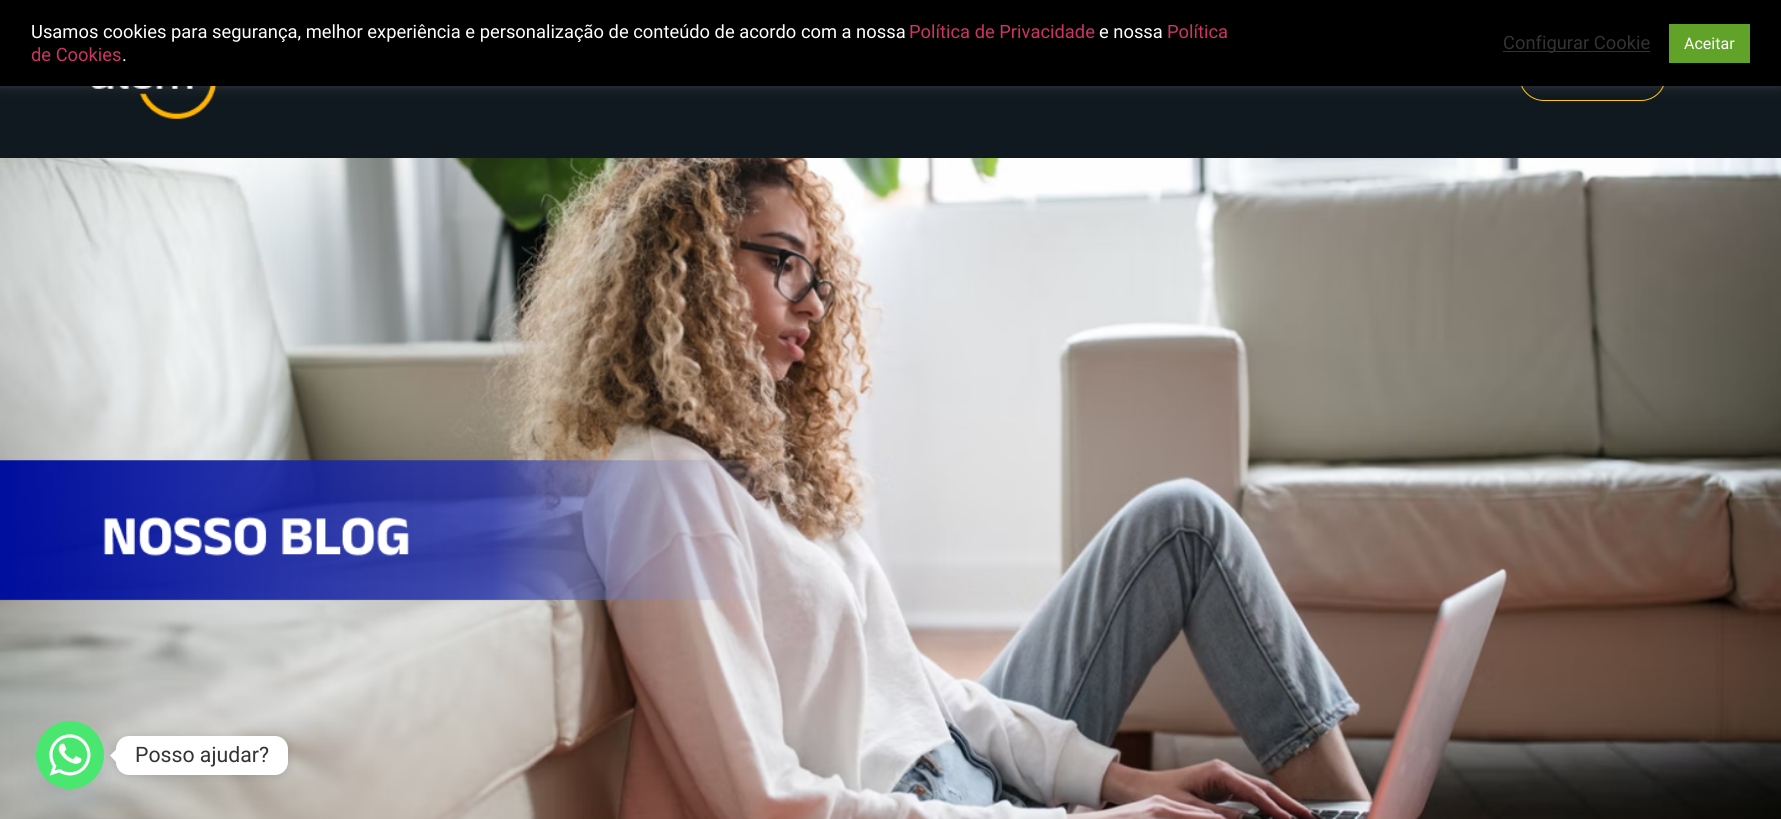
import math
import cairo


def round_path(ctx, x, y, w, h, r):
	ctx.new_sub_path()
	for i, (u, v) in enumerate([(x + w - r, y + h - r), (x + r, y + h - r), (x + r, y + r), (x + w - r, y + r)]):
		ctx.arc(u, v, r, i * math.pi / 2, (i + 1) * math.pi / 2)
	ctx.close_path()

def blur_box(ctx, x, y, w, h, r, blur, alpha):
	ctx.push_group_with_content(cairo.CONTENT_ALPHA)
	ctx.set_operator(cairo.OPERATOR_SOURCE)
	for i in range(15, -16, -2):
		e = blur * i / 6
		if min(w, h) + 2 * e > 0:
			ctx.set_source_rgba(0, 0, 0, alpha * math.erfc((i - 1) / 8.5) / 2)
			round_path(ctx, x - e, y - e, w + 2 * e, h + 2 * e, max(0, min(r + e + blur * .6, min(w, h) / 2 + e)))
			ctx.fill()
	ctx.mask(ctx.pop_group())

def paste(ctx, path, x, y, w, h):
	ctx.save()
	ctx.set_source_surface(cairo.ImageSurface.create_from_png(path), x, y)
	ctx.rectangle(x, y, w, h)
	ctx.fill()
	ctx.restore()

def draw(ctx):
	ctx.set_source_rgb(1, 1, 1)
	ctx.paint()
	ctx.set_source_rgb(0.063, 0.094, 0.125)
	ctx.rectangle(0, 86, 1781, 72)
	ctx.fill()
	paste(ctx, 'media/1.png', 91, 86, 126, 33)
	round_path(ctx, 1519.5, 50.5, 146, 50, 24.5)
	ctx.set_source_rgb(1, 0.792, 0)
	ctx.set_line_width(1)
	ctx.stroke()
	ctx.set_source_rgb(0.675, 0.671, 0.671)
	blur_box(ctx, 0, -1, 1781, 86, 0, 6, 0.3)
	ctx.set_source_rgb(0, 0, 0)
	ctx.rectangle(0, 0, 1781, 86)
	ctx.fill()
	ctx.select_font_face('Roboto')
	ctx.set_font_size(18.35)
	ctx.set_source_rgb(1, 1, 1)
	ctx.move_to(31, 38)
	ctx.show_text('Usamos cookies para segurança, melhor experiência e personalização de conteúdo de acordo com a nossa')
	ctx.set_source_rgb(0.8, 0.2, 0.4)
	ctx.move_to(909, 38)
	ctx.show_text('Política de Privacidade')
	ctx.set_source_rgb(1, 1, 1)
	ctx.move_to(1099, 38)
	ctx.show_text('e nossa')
	ctx.set_source_rgb(0.8, 0.2, 0.4)
	ctx.move_to(1167, 38)
	ctx.show_text('Política')
	ctx.move_to(31, 61)
	ctx.show_text('de Cookies')
	ctx.set_source_rgb(1, 1, 1)
	ctx.move_to(122, 61)
	ctx.show_text('.')
	ctx.set_source_rgb(0.2, 0.2, 0.2)
	ctx.rectangle(1503, 51, 147, 1)
	ctx.fill()
	ctx.move_to(1503, 49)
	ctx.show_text('Configurar Cookie')
	ctx.set_source_rgb(0.38, 0.635, 0.161)
	ctx.rectangle(1669, 24, 81, 39)
	ctx.fill()
	ctx.set_font_size(16)
	ctx.set_source_rgb(1, 1, 1)
	ctx.move_to(1684, 49)
	ctx.show_text('Aceitar')
	paste(ctx, 'media/2.png', 0, 158, 1781, 661)
	ctx.set_source_rgb(0.286, 0.408, 0.494)
	blur_box(ctx, 36, 741, 68, 68, 34, 15, 0.16)
	ctx.set_source_rgb(0.286, 0.902, 0.439)
	ctx.arc(70, 755, 34, 0, 2 * math.pi)
	ctx.fill()
	paste(ctx, 'media/3.png', 36, 721, 68, 68)
	ctx.set_source_rgb(0, 0, 0)
	blur_box(ctx, 116, 738, 172, 38, 13, 5, 0.15)
	ctx.set_source_rgb(1, 1, 1)
	round_path(ctx, 116, 736, 172, 39, 13)
	ctx.fill()
	ctx.new_path()
	ctx.move_to(116, 749.5)
	ctx.line_to(116, 762)
	ctx.line_to(110, 755.5)
	ctx.close_path()
	ctx.fill()
	ctx.set_font_size(21.25)
	ctx.set_source_rgb(0.2, 0.2, 0.2)
	ctx.move_to(135, 762)
	ctx.show_text('Posso ajudar?')


surface = cairo.ImageSurface(cairo.FORMAT_RGB24, 1781, 819)
ctx = cairo.Context(surface)
options = cairo.FontOptions()
options.set_hint_metrics(cairo.HINT_METRICS_OFF)
options.set_hint_style(cairo.HINT_STYLE_NONE)
ctx.set_font_options(options)
ctx.set_miter_limit(4)
draw(ctx)
surface.write_to_png('image.png')
